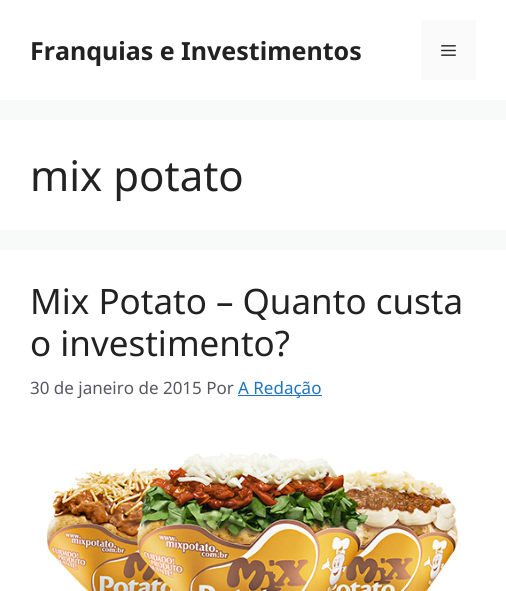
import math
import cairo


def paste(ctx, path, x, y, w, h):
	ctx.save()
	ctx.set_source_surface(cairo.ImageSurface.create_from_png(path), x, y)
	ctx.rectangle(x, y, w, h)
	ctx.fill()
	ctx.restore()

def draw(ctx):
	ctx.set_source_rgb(0.969, 0.973, 0.976)
	ctx.paint()
	ctx.set_source_rgb(1, 1, 1)
	ctx.rectangle(0, 0, 506, 100)
	ctx.fill()
	ctx.select_font_face('Noto Sans', cairo.FONT_SLANT_NORMAL, cairo.FONT_WEIGHT_BOLD)
	ctx.set_font_size(25)
	ctx.set_source_rgb(0.133, 0.133, 0.133)
	ctx.move_to(30, 60)
	ctx.show_text('Franquias e Investimentos')
	ctx.set_source_rgb(0.98, 0.98, 0.98)
	ctx.rectangle(421, 20, 55, 60)
	ctx.fill()
	paste(ctx, 'media/1.png', 441, 45, 15, 11)
	ctx.set_source_rgb(1, 1, 1)
	ctx.rectangle(0, 120, 506, 110)
	ctx.fill()
	ctx.select_font_face('Noto Sans')
	ctx.set_font_size(42)
	ctx.set_source_rgb(0.133, 0.133, 0.133)
	ctx.move_to(30, 191)
	ctx.show_text('mix potato')
	ctx.set_source_rgb(1, 1, 1)
	ctx.rectangle(0, 250, 506, 341)
	ctx.fill()
	ctx.set_font_size(35)
	ctx.set_source_rgb(0.133, 0.133, 0.133)
	ctx.move_to(30, 314)
	ctx.show_text('Mix Potato – Quanto custa')
	ctx.move_to(30, 356)
	ctx.show_text('o investimento?')
	ctx.set_font_size(17)
	ctx.set_source_rgb(0.341, 0.341, 0.376)
	ctx.move_to(30, 394)
	ctx.show_text('30 de janeiro de 2015 Por')
	ctx.set_source_rgb(0.118, 0.451, 0.745)
	ctx.rectangle(238, 395, 84, 1)
	ctx.fill()
	ctx.move_to(238, 394)
	ctx.show_text('A Redação')
	paste(ctx, 'media/2.png', 46, 452, 413, 139)


surface = cairo.ImageSurface(cairo.FORMAT_RGB24, 506, 591)
ctx = cairo.Context(surface)
options = cairo.FontOptions()
options.set_hint_metrics(cairo.HINT_METRICS_OFF)
options.set_hint_style(cairo.HINT_STYLE_NONE)
ctx.set_font_options(options)
ctx.set_miter_limit(4)
draw(ctx)
surface.write_to_png('image.png')
